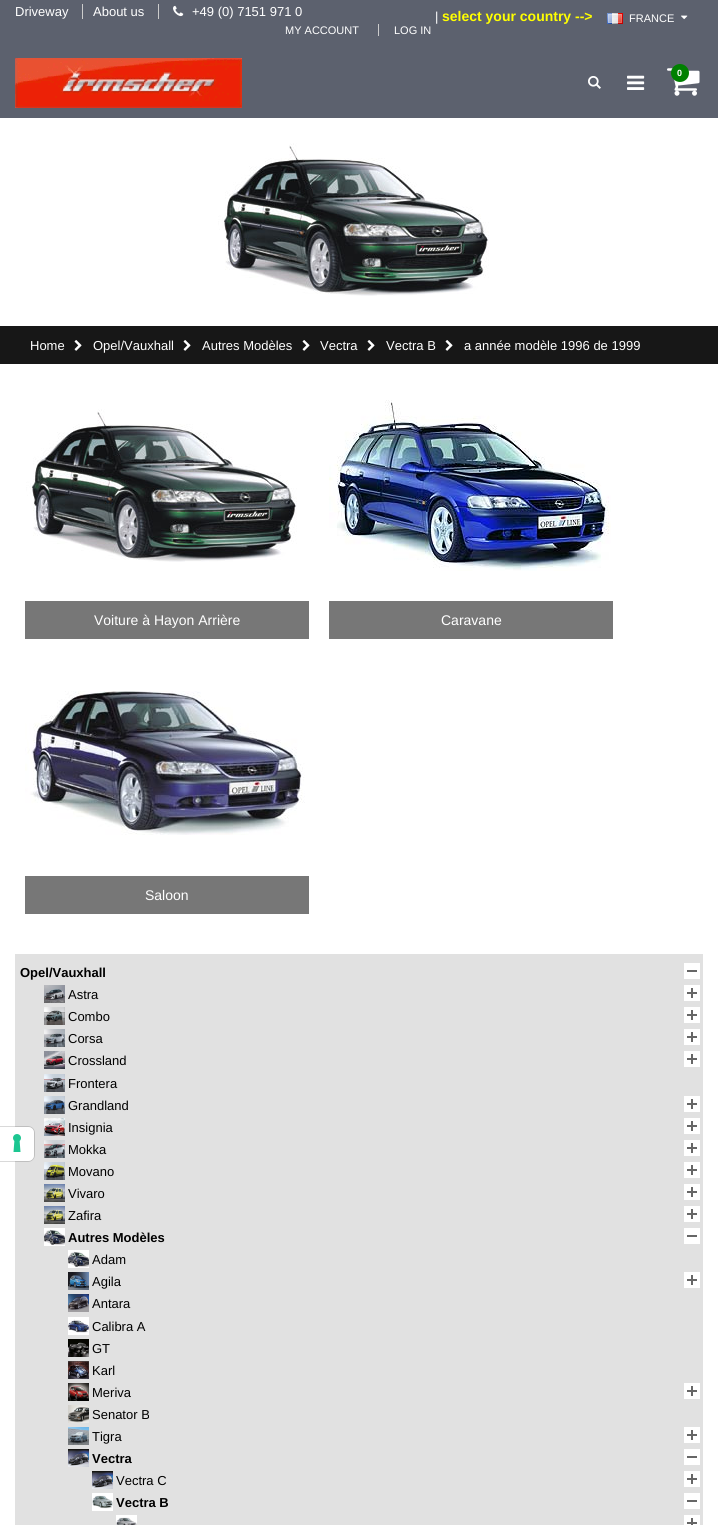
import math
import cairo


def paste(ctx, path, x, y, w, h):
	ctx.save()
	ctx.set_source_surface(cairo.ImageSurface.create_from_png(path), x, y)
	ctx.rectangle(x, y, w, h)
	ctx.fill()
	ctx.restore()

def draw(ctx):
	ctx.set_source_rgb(1, 1, 1)
	ctx.paint()
	ctx.set_source_rgb(0.361, 0.38, 0.431)
	ctx.rectangle(0, 0, 718, 118)
	ctx.fill()
	ctx.select_font_face('Liberation Sans')
	ctx.set_font_size(13)
	ctx.set_source_rgb(1, 1, 1)
	ctx.move_to(15, 16)
	ctx.show_text('Driveway')
	ctx.set_source_rgb(0.8, 0.8, 0.8)
	ctx.rectangle(82, 4, 1, 15)
	ctx.fill()
	ctx.set_source_rgb(1, 1, 1)
	ctx.move_to(93, 16)
	ctx.show_text('About us')
	ctx.set_source_rgb(0.8, 0.8, 0.8)
	ctx.rectangle(158, 4, 1, 15)
	ctx.fill()
	paste(ctx, 'media/1.png', 173, 5, 11, 12)
	ctx.set_source_rgb(1, 1, 1)
	ctx.move_to(192, 16)
	ctx.show_text('+49 (0) 7151 971 0')
	ctx.move_to(435, 21)
	ctx.show_text('|')
	ctx.select_font_face('Liberation Sans', cairo.FONT_SLANT_NORMAL, cairo.FONT_WEIGHT_BOLD)
	ctx.set_font_size(14)
	ctx.set_source_rgb(1, 1, 0)
	ctx.move_to(442, 21)
	ctx.show_text('select your country -->')
	paste(ctx, 'media/2.png', 607, 13, 16, 11)
	ctx.select_font_face('Liberation Sans')
	ctx.set_font_size(11)
	ctx.set_source_rgb(1, 1, 1)
	ctx.move_to(629, 22)
	ctx.show_text('FRANCE')
	paste(ctx, 'media/3.png', 681, 15, 7, 5)
	ctx.move_to(285, 34)
	ctx.show_text('MY ACCOUNT')
	ctx.move_to(394, 34)
	ctx.show_text('LOG IN')
	ctx.set_source_rgb(0.8, 0.8, 0.8)
	ctx.rectangle(378, 24, 1, 12)
	ctx.fill()
	paste(ctx, 'media/4.png', 15, 58, 227, 50)
	paste(ctx, 'media/5.png', 667, 68, 33, 28)
	ctx.set_source_rgb(0, 0.502, 0)
	ctx.arc(680, 73, 9, 0, 2 * math.pi)
	ctx.fill()
	ctx.select_font_face('Liberation Sans', cairo.FONT_SLANT_NORMAL, cairo.FONT_WEIGHT_BOLD)
	ctx.set_font_size(9)
	ctx.set_source_rgb(1, 1, 1)
	ctx.move_to(677, 76)
	ctx.show_text('0')
	paste(ctx, 'media/6.png', 588, 76, 13, 13)
	paste(ctx, 'media/7.png', 627, 75, 18, 15)
	paste(ctx, 'media/8.png', 218, 143, 271, 153)
	ctx.set_source_rgb(0.09, 0.09, 0.09)
	ctx.rectangle(0, 326, 718, 38)
	ctx.fill()
	ctx.select_font_face('Liberation Sans')
	ctx.set_font_size(13)
	ctx.set_source_rgb(1, 1, 1)
	ctx.move_to(30, 350)
	ctx.show_text('Home')
	paste(ctx, 'media/9.png', 74, 340, 8, 11)
	ctx.move_to(93, 350)
	ctx.show_text('Opel/Vauxhall')
	paste(ctx, 'media/9.png', 183, 340, 8, 11)
	ctx.move_to(202, 350)
	ctx.show_text('Autres Modèles')
	paste(ctx, 'media/9.png', 302, 340, 8, 11)
	ctx.move_to(320, 350)
	ctx.show_text('Vectra')
	paste(ctx, 'media/9.png', 367, 340, 8, 11)
	ctx.move_to(386, 350)
	ctx.show_text('Vectra B')
	paste(ctx, 'media/9.png', 445, 340, 8, 11)
	ctx.move_to(464, 350)
	ctx.show_text('a année modèle 1996 de 1999')
	paste(ctx, 'media/8.png', 26, 409, 271, 153)
	ctx.set_source_rgb(0.467, 0.467, 0.467)
	ctx.rectangle(25, 601, 284, 38)
	ctx.fill()
	ctx.set_font_size(14)
	ctx.set_source_rgb(1, 1, 1)
	ctx.move_to(94, 625)
	ctx.show_text('Voiture à Hayon Arrière')
	paste(ctx, 'media/10.png', 329, 400, 282, 171)
	ctx.set_source_rgb(0.467, 0.467, 0.467)
	ctx.rectangle(329, 601, 284, 38)
	ctx.fill()
	ctx.set_source_rgb(1, 1, 1)
	ctx.move_to(441, 625)
	ctx.show_text('Caravane')
	paste(ctx, 'media/11.png', 25, 691, 280, 144)
	ctx.set_source_rgb(0.467, 0.467, 0.467)
	ctx.rectangle(25, 876, 284, 38)
	ctx.fill()
	ctx.set_source_rgb(1, 1, 1)
	ctx.move_to(145, 900)
	ctx.show_text('Saloon')
	ctx.set_source_rgb(0.882, 0.882, 0.882)
	ctx.rectangle(15, 954, 688, 571)
	ctx.fill()
	ctx.select_font_face('Liberation Sans', cairo.FONT_SLANT_NORMAL, cairo.FONT_WEIGHT_BOLD)
	ctx.set_font_size(13)
	ctx.set_source_rgb(0, 0, 0)
	ctx.move_to(20, 977)
	ctx.show_text('Opel/Vauxhall')
	paste(ctx, 'media/12.png', 684, 963, 16, 16)
	paste(ctx, 'media/13.png', 44, 985, 21, 18)
	ctx.select_font_face('Liberation Sans')
	ctx.move_to(68, 999)
	ctx.show_text('Astra')
	paste(ctx, 'media/14.png', 684, 985, 16, 16)
	paste(ctx, 'media/15.png', 44, 1007, 21, 18)
	ctx.move_to(68, 1021)
	ctx.show_text('Combo')
	paste(ctx, 'media/14.png', 684, 1007, 16, 16)
	paste(ctx, 'media/16.png', 44, 1029, 21, 18)
	ctx.move_to(68, 1043)
	ctx.show_text('Corsa')
	paste(ctx, 'media/14.png', 684, 1029, 16, 16)
	paste(ctx, 'media/17.png', 44, 1051, 21, 18)
	ctx.move_to(68, 1065)
	ctx.show_text('Crossland')
	paste(ctx, 'media/14.png', 684, 1051, 16, 16)
	paste(ctx, 'media/18.png', 44, 1074, 21, 18)
	ctx.move_to(68, 1088)
	ctx.show_text('Frontera')
	paste(ctx, 'media/19.png', 44, 1096, 21, 18)
	ctx.move_to(68, 1110)
	ctx.show_text('Grandland')
	paste(ctx, 'media/14.png', 684, 1096, 16, 16)
	paste(ctx, 'media/20.png', 44, 1118, 21, 18)
	ctx.move_to(68, 1132)
	ctx.show_text('Insignia')
	paste(ctx, 'media/14.png', 684, 1118, 16, 16)
	paste(ctx, 'media/21.png', 44, 1140, 21, 18)
	ctx.move_to(68, 1154)
	ctx.show_text('Mokka')
	paste(ctx, 'media/14.png', 684, 1140, 16, 16)
	paste(ctx, 'media/22.png', 44, 1162, 21, 18)
	ctx.move_to(68, 1176)
	ctx.show_text('Movano')
	paste(ctx, 'media/14.png', 684, 1162, 16, 16)
	paste(ctx, 'media/23.png', 44, 1184, 21, 18)
	ctx.move_to(68, 1198)
	ctx.show_text('Vivaro')
	paste(ctx, 'media/14.png', 684, 1184, 16, 16)
	paste(ctx, 'media/24.png', 44, 1206, 21, 18)
	ctx.move_to(68, 1220)
	ctx.show_text('Zafira')
	paste(ctx, 'media/14.png', 684, 1206, 16, 16)
	paste(ctx, 'media/25.png', 44, 1228, 21, 18)
	ctx.select_font_face('Liberation Sans', cairo.FONT_SLANT_NORMAL, cairo.FONT_WEIGHT_BOLD)
	ctx.move_to(68, 1242)
	ctx.show_text('Autres Modèles')
	paste(ctx, 'media/12.png', 684, 1228, 16, 16)
	paste(ctx, 'media/26.png', 68, 1250, 21, 18)
	ctx.select_font_face('Liberation Sans')
	ctx.move_to(92, 1264)
	ctx.show_text('Adam')
	paste(ctx, 'media/27.png', 68, 1272, 21, 18)
	ctx.move_to(92, 1286)
	ctx.show_text('Agila')
	paste(ctx, 'media/14.png', 684, 1272, 16, 16)
	paste(ctx, 'media/28.png', 68, 1294, 21, 18)
	ctx.move_to(92, 1308)
	ctx.show_text('Antara')
	paste(ctx, 'media/29.png', 68, 1317, 21, 18)
	ctx.move_to(92, 1331)
	ctx.show_text('Calibra A')
	paste(ctx, 'media/30.png', 68, 1339, 21, 18)
	ctx.move_to(92, 1353)
	ctx.show_text('GT')
	paste(ctx, 'media/31.png', 68, 1361, 21, 18)
	ctx.move_to(92, 1375)
	ctx.show_text('Karl')
	paste(ctx, 'media/32.png', 68, 1383, 21, 18)
	ctx.move_to(92, 1397)
	ctx.show_text('Meriva')
	paste(ctx, 'media/14.png', 684, 1383, 16, 16)
	paste(ctx, 'media/33.png', 68, 1405, 21, 18)
	ctx.move_to(92, 1419)
	ctx.show_text('Senator B')
	paste(ctx, 'media/34.png', 68, 1427, 21, 18)
	ctx.move_to(92, 1441)
	ctx.show_text('Tigra')
	paste(ctx, 'media/14.png', 684, 1427, 16, 16)
	paste(ctx, 'media/35.png', 68, 1449, 21, 18)
	ctx.select_font_face('Liberation Sans', cairo.FONT_SLANT_NORMAL, cairo.FONT_WEIGHT_BOLD)
	ctx.move_to(92, 1463)
	ctx.show_text('Vectra')
	paste(ctx, 'media/12.png', 684, 1449, 16, 16)
	paste(ctx, 'media/36.png', 92, 1471, 21, 18)
	ctx.select_font_face('Liberation Sans')
	ctx.move_to(116, 1485)
	ctx.show_text('Vectra C')
	paste(ctx, 'media/14.png', 684, 1471, 16, 16)
	paste(ctx, 'media/37.png', 92, 1493, 21, 18)
	ctx.select_font_face('Liberation Sans', cairo.FONT_SLANT_NORMAL, cairo.FONT_WEIGHT_BOLD)
	ctx.move_to(116, 1507)
	ctx.show_text('Vectra B')
	paste(ctx, 'media/12.png', 684, 1493, 16, 16)
	paste(ctx, 'media/38.png', 116, 1515, 21, 10)
	paste(ctx, 'media/39.png', 684, 1515, 16, 10)
	ctx.new_path()
	ctx.move_to(-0.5, 1126.5)
	ctx.line_to(28, 1126.5)
	ctx.curve_to(31.5, 1126.5, 34.5, 1129.5, 34.5, 1133)
	ctx.line_to(34.5, 1155)
	ctx.curve_to(34.5, 1158.5, 31.5, 1161.5, 28, 1161.5)
	ctx.line_to(-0.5, 1161.5)
	ctx.close_path()
	ctx.set_source_rgba(0, 0, 0, 0.15)
	ctx.set_line_width(1)
	ctx.stroke()
	ctx.set_source_rgb(1, 1, 1)
	ctx.new_path()
	ctx.move_to(0, 1127)
	ctx.line_to(28, 1127)
	ctx.curve_to(31.5, 1127, 34, 1129.5, 34, 1133)
	ctx.line_to(34, 1155)
	ctx.curve_to(34, 1158.5, 31.5, 1161, 28, 1161)
	ctx.line_to(0, 1161)
	ctx.close_path()
	ctx.fill()
	paste(ctx, 'media/40.png', 13, 1134, 8, 18)


surface = cairo.ImageSurface(cairo.FORMAT_RGB24, 718, 1525)
ctx = cairo.Context(surface)
options = cairo.FontOptions()
options.set_hint_metrics(cairo.HINT_METRICS_OFF)
options.set_hint_style(cairo.HINT_STYLE_NONE)
ctx.set_font_options(options)
ctx.set_miter_limit(4)
draw(ctx)
surface.write_to_png('image.png')
